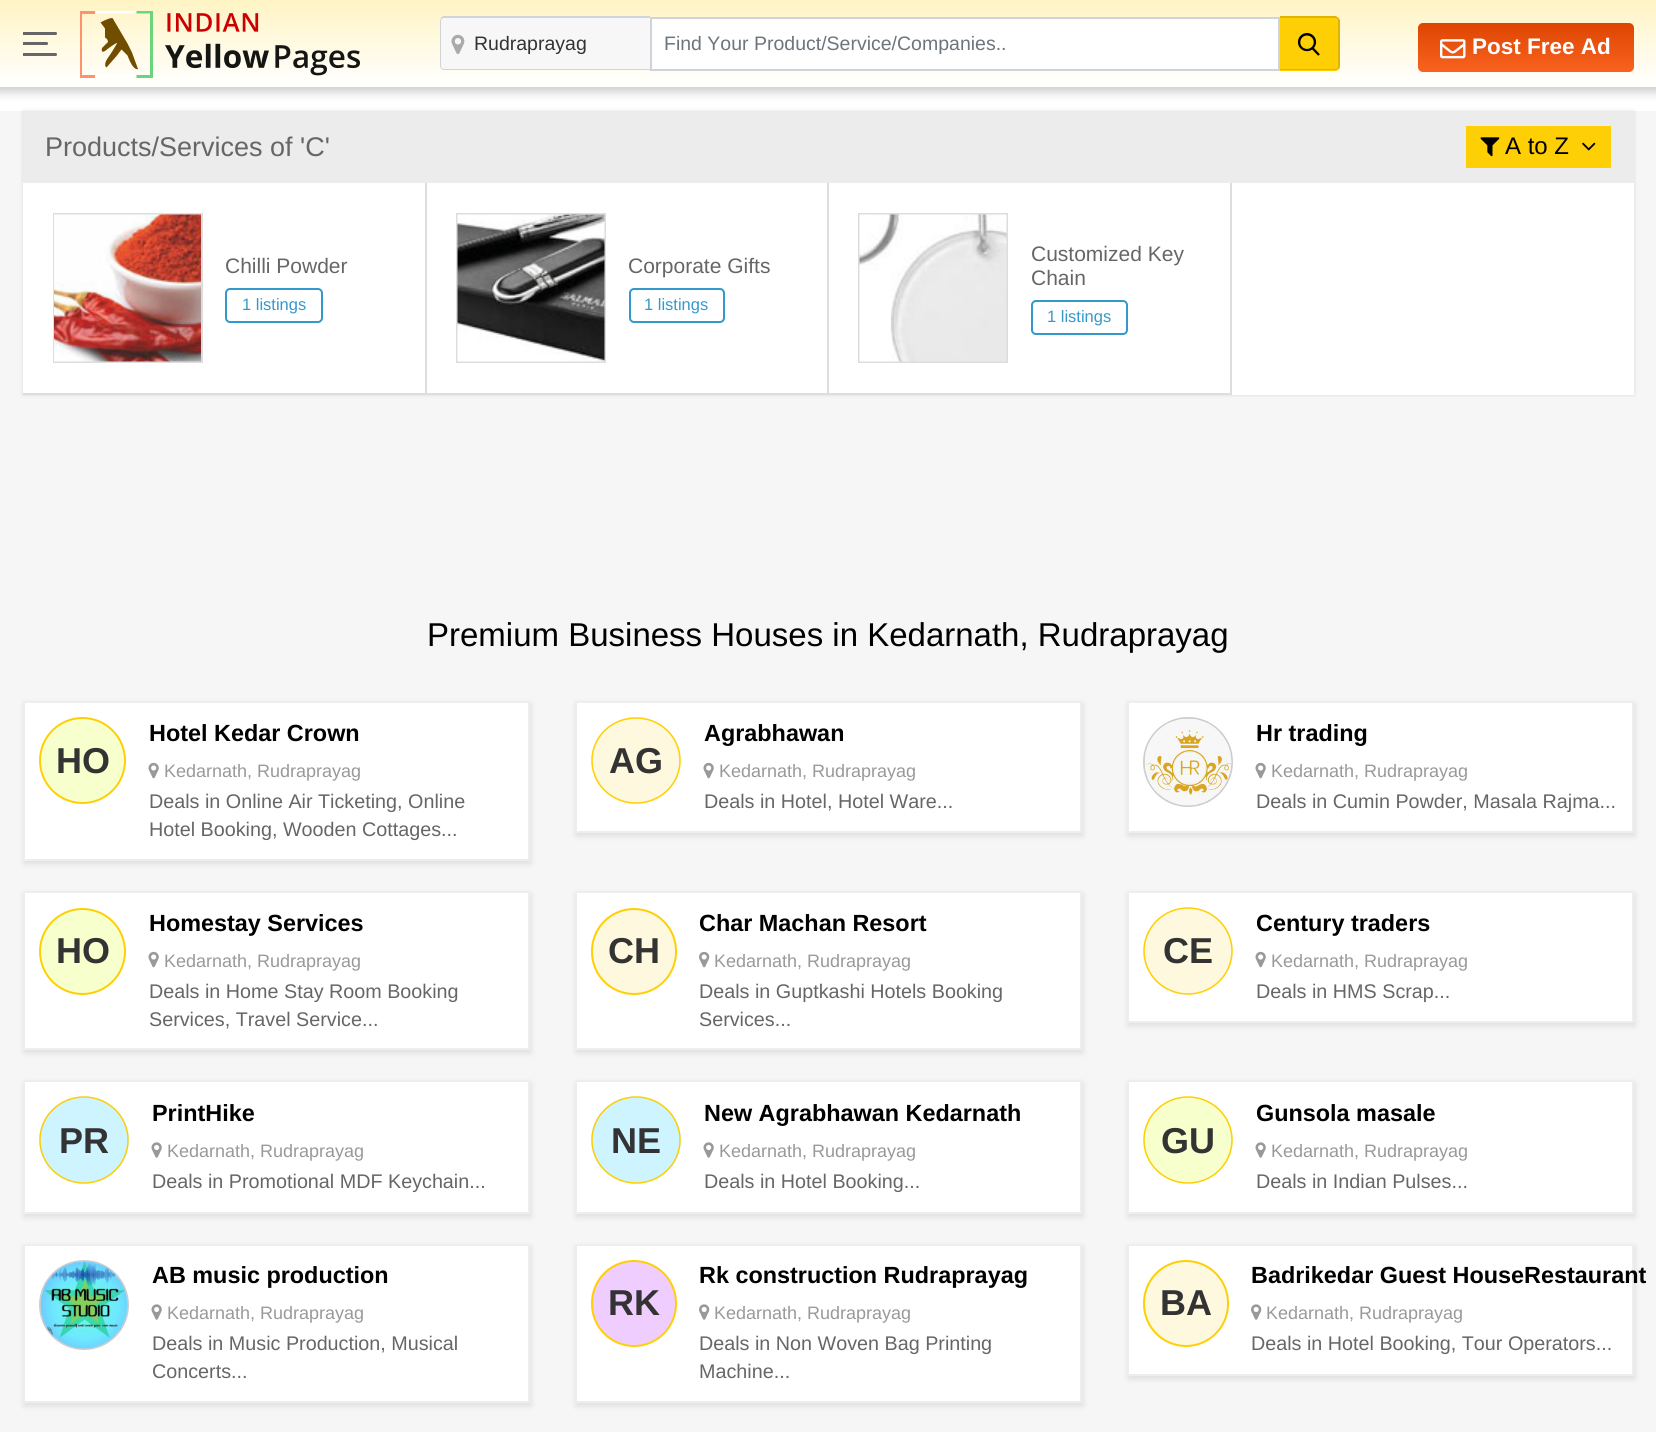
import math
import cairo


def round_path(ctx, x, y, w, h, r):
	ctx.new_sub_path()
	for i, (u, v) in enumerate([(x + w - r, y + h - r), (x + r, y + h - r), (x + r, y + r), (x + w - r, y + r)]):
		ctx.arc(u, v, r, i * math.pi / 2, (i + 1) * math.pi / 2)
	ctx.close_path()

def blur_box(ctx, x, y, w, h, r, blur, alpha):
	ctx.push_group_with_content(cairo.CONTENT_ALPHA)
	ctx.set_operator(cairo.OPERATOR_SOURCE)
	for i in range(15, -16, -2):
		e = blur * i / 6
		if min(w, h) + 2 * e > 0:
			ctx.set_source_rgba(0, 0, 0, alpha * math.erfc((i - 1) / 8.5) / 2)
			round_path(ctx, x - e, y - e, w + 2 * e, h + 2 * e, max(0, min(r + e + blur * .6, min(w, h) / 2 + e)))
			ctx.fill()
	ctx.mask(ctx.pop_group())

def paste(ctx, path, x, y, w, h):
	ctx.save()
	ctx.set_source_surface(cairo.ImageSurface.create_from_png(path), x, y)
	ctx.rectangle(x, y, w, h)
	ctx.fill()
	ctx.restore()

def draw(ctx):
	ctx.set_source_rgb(1, 1, 1)
	ctx.paint()
	ctx.set_source_rgb(0.8, 0.8, 0.8)
	blur_box(ctx, -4, -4, 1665, 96, 0, 5, 1)
	gradient = cairo.LinearGradient(828, 0, 828, 87)
	gradient.add_color_stop_rgba(0, 1, 0.957, 0.769, 1)
	gradient.add_color_stop_rgba(1, 1, 1, 1, 1)
	ctx.set_source(gradient)
	ctx.rectangle(0, 0, 1656, 87)
	ctx.fill()
	ctx.set_source_rgb(0.4, 0.4, 0.4)
	ctx.new_path()
	ctx.move_to(23, 32)
	ctx.line_to(55.5, 32)
	ctx.curve_to(56.5, 32, 57, 32.5, 57, 33.5)
	ctx.curve_to(57, 34.5, 56.5, 35, 55.5, 35)
	ctx.line_to(23, 35)
	ctx.close_path()
	ctx.fill()
	ctx.new_path()
	ctx.move_to(23, 42)
	ctx.line_to(46.5, 42)
	ctx.curve_to(47.5, 42, 48, 42.5, 48, 43.5)
	ctx.curve_to(48, 44.5, 47.5, 45, 46.5, 45)
	ctx.line_to(23, 45)
	ctx.close_path()
	ctx.fill()
	ctx.new_path()
	ctx.move_to(23, 53)
	ctx.line_to(55.5, 53)
	ctx.curve_to(56.5, 53, 57, 53.5, 57, 54.5)
	ctx.curve_to(57, 55.5, 56.5, 56, 55.5, 56)
	ctx.line_to(23, 56)
	ctx.close_path()
	ctx.fill()
	paste(ctx, 'media/1.png', 80, 11, 73, 67)
	paste(ctx, 'media/2.png', 165, 13, 195, 63)
	ctx.set_source_rgb(0.965, 0.965, 0.965)
	ctx.new_path()
	ctx.move_to(444, 18)
	ctx.line_to(650, 18)
	ctx.line_to(650, 69)
	ctx.line_to(444, 69)
	ctx.curve_to(442.5, 69, 441, 67.5, 441, 66)
	ctx.line_to(441, 21)
	ctx.curve_to(441, 19.5, 442.5, 18, 444, 18)
	ctx.close_path()
	ctx.fill()
	ctx.set_source_rgb(0.808, 0.831, 0.855)
	ctx.set_fill_rule(cairo.FILL_RULE_EVEN_ODD)
	ctx.new_path()
	ctx.move_to(444, 16)
	ctx.line_to(650, 16)
	ctx.line_to(650, 70)
	ctx.line_to(444, 70)
	ctx.curve_to(442, 70, 440, 68, 440, 66)
	ctx.line_to(440, 21)
	ctx.curve_to(440, 19, 442, 16, 444, 16)
	ctx.close_path()
	ctx.move_to(444, 18)
	ctx.line_to(650, 18)
	ctx.line_to(650, 69)
	ctx.line_to(444, 69)
	ctx.curve_to(442, 69, 441, 68, 441, 66)
	ctx.line_to(441, 21)
	ctx.curve_to(441, 19, 442, 18, 444, 18)
	ctx.close_path()
	ctx.fill()
	paste(ctx, 'media/3.png', 451, 34, 14, 20)
	ctx.select_font_face('Liberation Sans')
	ctx.set_font_size(19.5)
	ctx.set_source_rgb(0.2, 0.2, 0.2)
	ctx.move_to(474, 50)
	ctx.show_text('Rudraprayag')
	ctx.set_source_rgb(1, 1, 1)
	ctx.rectangle(651, 18, 628, 52)
	ctx.fill_preserve()
	ctx.set_source_rgb(0.808, 0.831, 0.855)
	ctx.stroke()
	ctx.set_source_rgb(0.424, 0.459, 0.49)
	ctx.move_to(664, 50)
	ctx.show_text('Find Your Product/Service/Companies..')
	ctx.set_source_rgb(1, 0.812, 0.02)
	ctx.new_path()
	ctx.move_to(1280, 17)
	ctx.line_to(1335, 17)
	ctx.curve_to(1338, 17, 1340, 19, 1340, 22)
	ctx.line_to(1340, 66)
	ctx.curve_to(1340, 69, 1338, 71, 1335, 71)
	ctx.line_to(1280, 71)
	ctx.close_path()
	ctx.fill()
	ctx.set_source_rgb(0.875, 0.706, 0)
	ctx.new_path()
	ctx.move_to(1280, 16)
	ctx.line_to(1335, 16)
	ctx.curve_to(1337, 16, 1340, 19, 1340, 21)
	ctx.line_to(1340, 66)
	ctx.curve_to(1340, 68, 1337, 70, 1335, 70)
	ctx.line_to(1280, 70)
	ctx.close_path()
	ctx.move_to(1280, 18)
	ctx.line_to(1335, 18)
	ctx.curve_to(1337, 18, 1338, 19, 1338, 21)
	ctx.line_to(1338, 66)
	ctx.curve_to(1338, 68, 1337, 69, 1335, 69)
	ctx.line_to(1280, 69)
	ctx.close_path()
	ctx.fill()
	paste(ctx, 'media/4.png', 1298, 33, 22, 23)
	gradient = cairo.LinearGradient(1526, 22, 1526, 72)
	gradient.add_color_stop_rgba(0, 0.867, 0.267, 0.004, 1)
	gradient.add_color_stop_rgba(1, 0.976, 0.384, 0.122, 1)
	ctx.set_source(gradient)
	round_path(ctx, 1418, 23, 216, 49, 5)
	ctx.fill()
	paste(ctx, 'media/5.png', 1440, 39, 26, 20)
	ctx.select_font_face('Liberation Sans', cairo.FONT_SLANT_NORMAL, cairo.FONT_WEIGHT_BOLD)
	ctx.set_font_size(22.5)
	ctx.set_source_rgb(1, 1, 1)
	ctx.move_to(1472, 54)
	ctx.show_text('Post Free Ad')
	ctx.set_source_rgb(0.961, 0.961, 0.961)
	ctx.rectangle(0, 111, 1656, 1321)
	ctx.fill()
	ctx.set_source_rgb(0, 0, 0)
	blur_box(ctx, 23, 111, 1611, 284, 0, 2, 0.12)
	ctx.set_source_rgb(1, 1, 1)
	ctx.rectangle(23, 183, 1611, 212)
	ctx.fill()
	ctx.set_source_rgb(0.922, 0.922, 0.922)
	ctx.rectangle(23, 111, 1611, 72)
	ctx.fill()
	ctx.select_font_face('Liberation Sans')
	ctx.set_font_size(27)
	ctx.set_source_rgb(0.4, 0.4, 0.4)
	ctx.move_to(45, 156)
	ctx.show_text('Products/Services of \'C\'')
	ctx.set_source_rgb(1, 0.812, 0.02)
	ctx.rectangle(1466, 126, 145, 42)
	ctx.fill()
	paste(ctx, 'media/6.png', 1480, 137, 20, 20)
	ctx.set_font_size(24)
	ctx.set_source_rgb(0, 0, 0)
	ctx.move_to(1505, 154)
	ctx.show_text('A to Z')
	paste(ctx, 'media/7.png', 1582, 142, 14, 9)
	ctx.set_source_rgb(0.867, 0.867, 0.867)
	ctx.rectangle(425, 183, 2, 212)
	ctx.fill()
	ctx.rectangle(23, 393, 403, 2)
	ctx.fill()
	ctx.rectangle(54, 214, 148, 148)
	ctx.stroke()
	paste(ctx, 'media/8.png', 54, 214, 147, 148)
	ctx.set_font_size(21)
	ctx.set_source_rgb(0.4, 0.4, 0.4)
	ctx.move_to(225, 273)
	ctx.show_text('Chilli Powder')
	round_path(ctx, 226, 289, 96, 33, 4)
	ctx.set_source_rgb(0.2, 0.6, 0.8)
	ctx.stroke()
	ctx.set_font_size(16.5)
	ctx.move_to(242, 310)
	ctx.show_text('1 listings')
	ctx.set_source_rgb(0.867, 0.867, 0.867)
	ctx.rectangle(827, 183, 2, 212)
	ctx.fill()
	ctx.rectangle(426, 393, 402, 2)
	ctx.fill()
	ctx.rectangle(457, 214, 148, 148)
	ctx.stroke()
	paste(ctx, 'media/9.png', 457, 214, 148, 148)
	ctx.set_font_size(21)
	ctx.set_source_rgb(0.4, 0.4, 0.4)
	ctx.move_to(628, 273)
	ctx.show_text('Corporate Gifts')
	round_path(ctx, 630, 289, 94, 33, 4)
	ctx.set_source_rgb(0.2, 0.6, 0.8)
	ctx.stroke()
	ctx.set_font_size(16.5)
	ctx.move_to(644, 310)
	ctx.show_text('1 listings')
	ctx.set_source_rgb(0.867, 0.867, 0.867)
	ctx.rectangle(1230, 183, 2, 212)
	ctx.fill()
	ctx.rectangle(828, 393, 404, 2)
	ctx.fill()
	ctx.rectangle(859, 214, 148, 148)
	ctx.stroke()
	paste(ctx, 'media/10.png', 859, 214, 148, 148)
	ctx.set_font_size(21)
	ctx.set_source_rgb(0.4, 0.4, 0.4)
	ctx.move_to(1031, 261)
	ctx.show_text('Customized Key')
	ctx.move_to(1031, 285)
	ctx.show_text('Chain')
	round_path(ctx, 1032, 301, 95, 33, 4)
	ctx.set_source_rgb(0.2, 0.6, 0.8)
	ctx.stroke()
	ctx.set_font_size(16.5)
	ctx.move_to(1047, 322)
	ctx.show_text('1 listings')
	ctx.set_font_size(33)
	ctx.set_source_rgb(0, 0, 0)
	ctx.move_to(427, 646)
	ctx.show_text('Premium Business Houses in Kedarnath, Rudraprayag')
	ctx.set_source_rgb(0, 0, 0)
	blur_box(ctx, 24, 704, 507, 160, 0, 3, 0.1)
	ctx.set_source_rgb(1, 1, 1)
	ctx.rectangle(24, 702, 505, 158)
	ctx.fill_preserve()
	ctx.set_source_rgb(0.933, 0.933, 0.933)
	ctx.stroke()
	ctx.set_source_rgb(0.965, 1, 0.804)
	ctx.arc(82.5, 760.5, 42.5, 0, 2 * math.pi)
	ctx.fill_preserve()
	ctx.set_source_rgb(1, 0.812, 0.02)
	ctx.stroke()
	ctx.select_font_face('Liberation Sans', cairo.FONT_SLANT_NORMAL, cairo.FONT_WEIGHT_BOLD)
	ctx.set_font_size(36)
	ctx.set_source_rgb(0.2, 0.2, 0.2)
	ctx.move_to(56, 773)
	ctx.show_text('HO')
	ctx.set_font_size(23.4)
	ctx.set_source_rgb(0, 0, 0)
	ctx.move_to(149, 741)
	ctx.show_text('Hotel Kedar Crown')
	paste(ctx, 'media/11.png', 148, 762, 11, 17)
	ctx.select_font_face('Liberation Sans')
	ctx.set_font_size(18)
	ctx.set_source_rgb(0.6, 0.6, 0.6)
	ctx.move_to(164, 777)
	ctx.show_text('Kedarnath, Rudraprayag')
	ctx.set_font_size(19.75)
	ctx.set_source_rgb(0.4, 0.4, 0.4)
	ctx.move_to(149, 808)
	ctx.show_text('Deals in Online Air Ticketing, Online')
	ctx.move_to(149, 836)
	ctx.show_text('Hotel Booking, Wooden Cottages...')
	ctx.set_source_rgb(0, 0, 0)
	blur_box(ctx, 576, 704, 507, 132, 0, 3, 0.1)
	ctx.set_source_rgb(1, 1, 1)
	ctx.rectangle(576, 702, 505, 130)
	ctx.fill_preserve()
	ctx.set_source_rgb(0.933, 0.933, 0.933)
	ctx.stroke()
	ctx.set_source_rgb(0.996, 0.969, 0.871)
	ctx.new_path()
	ctx.move_to(636, 717)
	ctx.curve_to(661, 717, 681, 736.5, 681, 760.5)
	ctx.curve_to(681, 784.5, 661, 804, 636, 804)
	ctx.curve_to(611, 804, 591, 784.5, 591, 760.5)
	ctx.curve_to(591, 736.5, 611, 717, 636, 717)
	ctx.close_path()
	ctx.fill()
	ctx.new_path()
	ctx.move_to(636, 718)
	ctx.curve_to(660.5, 718, 680, 737, 680, 760.5)
	ctx.curve_to(680, 784, 660.5, 803, 636, 803)
	ctx.curve_to(611.5, 803, 592, 784, 592, 760.5)
	ctx.curve_to(592, 737, 611.5, 718, 636, 718)
	ctx.close_path()
	ctx.set_source_rgb(1, 0.812, 0.02)
	ctx.set_line_width(1.5)
	ctx.stroke()
	ctx.select_font_face('Liberation Sans', cairo.FONT_SLANT_NORMAL, cairo.FONT_WEIGHT_BOLD)
	ctx.set_font_size(36)
	ctx.set_source_rgb(0.2, 0.2, 0.2)
	ctx.move_to(609, 773)
	ctx.show_text('AG')
	ctx.set_font_size(23.4)
	ctx.set_source_rgb(0, 0, 0)
	ctx.move_to(704, 741)
	ctx.show_text('Agrabhawan')
	paste(ctx, 'media/11.png', 703, 762, 11, 17)
	ctx.select_font_face('Liberation Sans')
	ctx.set_font_size(18)
	ctx.set_source_rgb(0.6, 0.6, 0.6)
	ctx.move_to(719, 777)
	ctx.show_text('Kedarnath, Rudraprayag')
	ctx.set_font_size(19.75)
	ctx.set_source_rgb(0.4, 0.4, 0.4)
	ctx.move_to(704, 808)
	ctx.show_text('Deals in Hotel, Hotel Ware...')
	ctx.set_source_rgb(0, 0, 0)
	blur_box(ctx, 1128, 704, 507, 132, 0, 3, 0.1)
	ctx.set_source_rgb(1, 1, 1)
	ctx.rectangle(1128, 702, 505, 130)
	ctx.fill_preserve()
	ctx.set_source_rgb(0.933, 0.933, 0.933)
	ctx.set_line_width(2)
	ctx.stroke()
	ctx.arc(1188, 762, 44, 0, 2 * math.pi)
	ctx.set_source_rgb(0.8, 0.8, 0.8)
	ctx.stroke()
	paste(ctx, 'media/12.png', 1144, 718, 88, 88)
	ctx.select_font_face('Liberation Sans', cairo.FONT_SLANT_NORMAL, cairo.FONT_WEIGHT_BOLD)
	ctx.set_font_size(23.4)
	ctx.set_source_rgb(0, 0, 0)
	ctx.move_to(1256, 741)
	ctx.show_text('Hr trading')
	paste(ctx, 'media/11.png', 1255, 762, 11, 17)
	ctx.select_font_face('Liberation Sans')
	ctx.set_font_size(18)
	ctx.set_source_rgb(0.6, 0.6, 0.6)
	ctx.move_to(1271, 777)
	ctx.show_text('Kedarnath, Rudraprayag')
	ctx.set_font_size(19.75)
	ctx.set_source_rgb(0.4, 0.4, 0.4)
	ctx.move_to(1256, 808)
	ctx.show_text('Deals in Cumin Powder, Masala Rajma...')
	ctx.set_source_rgb(0, 0, 0)
	blur_box(ctx, 24, 894, 507, 159, 0, 3, 0.1)
	ctx.set_source_rgb(1, 1, 1)
	ctx.rectangle(24, 892, 505, 157)
	ctx.fill_preserve()
	ctx.set_source_rgb(0.933, 0.933, 0.933)
	ctx.stroke()
	ctx.set_source_rgb(0.965, 1, 0.804)
	ctx.arc(82.5, 951.5, 42.5, 0, 2 * math.pi)
	ctx.fill_preserve()
	ctx.set_source_rgb(1, 0.812, 0.02)
	ctx.stroke()
	ctx.select_font_face('Liberation Sans', cairo.FONT_SLANT_NORMAL, cairo.FONT_WEIGHT_BOLD)
	ctx.set_font_size(36)
	ctx.set_source_rgb(0.2, 0.2, 0.2)
	ctx.move_to(56, 963)
	ctx.show_text('HO')
	ctx.set_font_size(23.4)
	ctx.set_source_rgb(0, 0, 0)
	ctx.move_to(149, 931)
	ctx.show_text('Homestay Services')
	paste(ctx, 'media/11.png', 148, 951, 11, 17)
	ctx.select_font_face('Liberation Sans')
	ctx.set_font_size(18)
	ctx.set_source_rgb(0.6, 0.6, 0.6)
	ctx.move_to(164, 967)
	ctx.show_text('Kedarnath, Rudraprayag')
	ctx.set_font_size(19.75)
	ctx.set_source_rgb(0.4, 0.4, 0.4)
	ctx.move_to(149, 998)
	ctx.show_text('Deals in Home Stay Room Booking')
	ctx.move_to(149, 1026)
	ctx.show_text('Services, Travel Service...')
	ctx.set_source_rgb(0, 0, 0)
	blur_box(ctx, 576, 894, 507, 159, 0, 3, 0.1)
	ctx.set_source_rgb(1, 1, 1)
	ctx.rectangle(576, 892, 505, 157)
	ctx.fill_preserve()
	ctx.set_source_rgb(0.933, 0.933, 0.933)
	ctx.stroke()
	ctx.set_source_rgb(0.996, 0.969, 0.871)
	round_path(ctx, 592, 909, 84, 85, 42)
	ctx.fill_preserve()
	ctx.set_source_rgb(1, 0.812, 0.02)
	ctx.stroke()
	ctx.select_font_face('Liberation Sans', cairo.FONT_SLANT_NORMAL, cairo.FONT_WEIGHT_BOLD)
	ctx.set_font_size(36)
	ctx.set_source_rgb(0.2, 0.2, 0.2)
	ctx.move_to(608, 963)
	ctx.show_text('CH')
	ctx.set_font_size(23.4)
	ctx.set_source_rgb(0, 0, 0)
	ctx.move_to(699, 931)
	ctx.show_text('Char Machan Resort')
	paste(ctx, 'media/13.png', 699, 951, 11, 17)
	ctx.select_font_face('Liberation Sans')
	ctx.set_font_size(18)
	ctx.set_source_rgb(0.6, 0.6, 0.6)
	ctx.move_to(714, 967)
	ctx.show_text('Kedarnath, Rudraprayag')
	ctx.set_font_size(19.75)
	ctx.set_source_rgb(0.4, 0.4, 0.4)
	ctx.move_to(699, 998)
	ctx.show_text('Deals in Guptkashi Hotels Booking')
	ctx.move_to(699, 1026)
	ctx.show_text('Services...')
	ctx.set_source_rgb(0, 0, 0)
	blur_box(ctx, 1128, 894, 507, 132, 0, 3, 0.1)
	ctx.set_source_rgb(1, 1, 1)
	ctx.rectangle(1128, 892, 505, 130)
	ctx.fill_preserve()
	ctx.set_source_rgb(0.933, 0.933, 0.933)
	ctx.stroke()
	ctx.set_source_rgb(0.996, 0.969, 0.871)
	ctx.new_path()
	ctx.move_to(1188, 907.5)
	ctx.curve_to(1213, 907.5, 1233, 927, 1233, 951)
	ctx.curve_to(1233, 975, 1213, 994.5, 1188, 994.5)
	ctx.curve_to(1163, 994.5, 1143, 975, 1143, 951)
	ctx.curve_to(1143, 927, 1163, 907.5, 1188, 907.5)
	ctx.close_path()
	ctx.fill()
	ctx.new_path()
	ctx.move_to(1188, 908)
	ctx.curve_to(1212.5, 908, 1232, 927.5, 1232, 951)
	ctx.curve_to(1232, 974.5, 1212.5, 994, 1188, 994)
	ctx.curve_to(1163.5, 994, 1144, 974.5, 1144, 951)
	ctx.curve_to(1144, 927.5, 1163.5, 908, 1188, 908)
	ctx.close_path()
	ctx.set_source_rgb(1, 0.812, 0.02)
	ctx.set_line_width(1.5)
	ctx.stroke()
	ctx.select_font_face('Liberation Sans', cairo.FONT_SLANT_NORMAL, cairo.FONT_WEIGHT_BOLD)
	ctx.set_font_size(36)
	ctx.set_source_rgb(0.2, 0.2, 0.2)
	ctx.move_to(1163, 963)
	ctx.show_text('CE')
	ctx.set_font_size(23.4)
	ctx.set_source_rgb(0, 0, 0)
	ctx.move_to(1256, 931)
	ctx.show_text('Century traders')
	paste(ctx, 'media/11.png', 1255, 951, 11, 17)
	ctx.select_font_face('Liberation Sans')
	ctx.set_font_size(18)
	ctx.set_source_rgb(0.6, 0.6, 0.6)
	ctx.move_to(1271, 967)
	ctx.show_text('Kedarnath, Rudraprayag')
	ctx.set_font_size(19.75)
	ctx.set_source_rgb(0.4, 0.4, 0.4)
	ctx.move_to(1256, 998)
	ctx.show_text('Deals in HMS Scrap...')
	ctx.set_source_rgb(0, 0, 0)
	blur_box(ctx, 24, 1083, 507, 134, 0, 3, 0.1)
	ctx.set_source_rgb(1, 1, 1)
	ctx.rectangle(24, 1081, 505, 132)
	ctx.fill_preserve()
	ctx.set_source_rgb(0.933, 0.933, 0.933)
	ctx.set_line_width(2)
	ctx.stroke()
	ctx.set_source_rgb(0.804, 0.957, 1)
	ctx.new_path()
	ctx.move_to(84, 1096.5)
	ctx.curve_to(109, 1096.5, 129, 1116, 129, 1140)
	ctx.curve_to(129, 1164, 109, 1183.5, 84, 1183.5)
	ctx.curve_to(59, 1183.5, 39, 1164, 39, 1140)
	ctx.curve_to(39, 1116, 59, 1096.5, 84, 1096.5)
	ctx.close_path()
	ctx.fill()
	ctx.new_path()
	ctx.move_to(84, 1097)
	ctx.curve_to(108.5, 1097, 128, 1116.5, 128, 1140)
	ctx.curve_to(128, 1163.5, 108.5, 1183, 84, 1183)
	ctx.curve_to(59.5, 1183, 40, 1163.5, 40, 1140)
	ctx.curve_to(40, 1116.5, 59.5, 1097, 84, 1097)
	ctx.close_path()
	ctx.set_source_rgb(1, 0.812, 0.02)
	ctx.set_line_width(1.5)
	ctx.stroke()
	ctx.select_font_face('Liberation Sans', cairo.FONT_SLANT_NORMAL, cairo.FONT_WEIGHT_BOLD)
	ctx.set_font_size(36)
	ctx.set_source_rgb(0.2, 0.2, 0.2)
	ctx.move_to(59, 1153)
	ctx.show_text('PR')
	ctx.set_font_size(23.4)
	ctx.set_source_rgb(0, 0, 0)
	ctx.move_to(152, 1121)
	ctx.show_text('PrintHike')
	paste(ctx, 'media/14.png', 151, 1142, 11, 16)
	ctx.select_font_face('Liberation Sans')
	ctx.set_font_size(18)
	ctx.set_source_rgb(0.6, 0.6, 0.6)
	ctx.move_to(167, 1157)
	ctx.show_text('Kedarnath, Rudraprayag')
	ctx.set_font_size(19.75)
	ctx.set_source_rgb(0.4, 0.4, 0.4)
	ctx.move_to(152, 1188)
	ctx.show_text('Deals in Promotional MDF Keychain...')
	ctx.set_source_rgb(0, 0, 0)
	blur_box(ctx, 576, 1083, 507, 134, 0, 3, 0.1)
	ctx.set_source_rgb(1, 1, 1)
	ctx.rectangle(576, 1081, 505, 132)
	ctx.fill_preserve()
	ctx.set_source_rgb(0.933, 0.933, 0.933)
	ctx.set_line_width(2)
	ctx.stroke()
	ctx.set_source_rgb(0.804, 0.957, 1)
	ctx.new_path()
	ctx.move_to(636, 1096.5)
	ctx.curve_to(661, 1096.5, 681, 1116, 681, 1140)
	ctx.curve_to(681, 1164, 661, 1183.5, 636, 1183.5)
	ctx.curve_to(611, 1183.5, 591, 1164, 591, 1140)
	ctx.curve_to(591, 1116, 611, 1096.5, 636, 1096.5)
	ctx.close_path()
	ctx.fill()
	ctx.new_path()
	ctx.move_to(636, 1097)
	ctx.curve_to(660.5, 1097, 680, 1116.5, 680, 1140)
	ctx.curve_to(680, 1163.5, 660.5, 1183, 636, 1183)
	ctx.curve_to(611.5, 1183, 592, 1163.5, 592, 1140)
	ctx.curve_to(592, 1116.5, 611.5, 1097, 636, 1097)
	ctx.close_path()
	ctx.set_source_rgb(1, 0.812, 0.02)
	ctx.set_line_width(1.5)
	ctx.stroke()
	ctx.select_font_face('Liberation Sans', cairo.FONT_SLANT_NORMAL, cairo.FONT_WEIGHT_BOLD)
	ctx.set_font_size(36)
	ctx.set_source_rgb(0.2, 0.2, 0.2)
	ctx.move_to(611, 1153)
	ctx.show_text('NE')
	ctx.set_font_size(23.4)
	ctx.set_source_rgb(0, 0, 0)
	ctx.move_to(704, 1121)
	ctx.show_text('New Agrabhawan Kedarnath')
	paste(ctx, 'media/14.png', 703, 1142, 11, 16)
	ctx.select_font_face('Liberation Sans')
	ctx.set_font_size(18)
	ctx.set_source_rgb(0.6, 0.6, 0.6)
	ctx.move_to(719, 1157)
	ctx.show_text('Kedarnath, Rudraprayag')
	ctx.set_font_size(19.75)
	ctx.set_source_rgb(0.4, 0.4, 0.4)
	ctx.move_to(704, 1188)
	ctx.show_text('Deals in Hotel Booking...')
	ctx.set_source_rgb(0, 0, 0)
	blur_box(ctx, 1128, 1083, 507, 134, 0, 3, 0.1)
	ctx.set_source_rgb(1, 1, 1)
	ctx.rectangle(1128, 1081, 505, 132)
	ctx.fill_preserve()
	ctx.set_source_rgb(0.933, 0.933, 0.933)
	ctx.set_line_width(2)
	ctx.stroke()
	ctx.set_source_rgb(0.965, 1, 0.804)
	ctx.new_path()
	ctx.move_to(1188, 1096.5)
	ctx.curve_to(1213, 1096.5, 1233, 1116, 1233, 1140)
	ctx.curve_to(1233, 1164, 1213, 1183.5, 1188, 1183.5)
	ctx.curve_to(1163, 1183.5, 1143, 1164, 1143, 1140)
	ctx.curve_to(1143, 1116, 1163, 1096.5, 1188, 1096.5)
	ctx.close_path()
	ctx.fill()
	ctx.new_path()
	ctx.move_to(1188, 1097)
	ctx.curve_to(1212.5, 1097, 1232, 1116.5, 1232, 1140)
	ctx.curve_to(1232, 1163.5, 1212.5, 1183, 1188, 1183)
	ctx.curve_to(1163.5, 1183, 1144, 1163.5, 1144, 1140)
	ctx.curve_to(1144, 1116.5, 1163.5, 1097, 1188, 1097)
	ctx.close_path()
	ctx.set_source_rgb(1, 0.812, 0.02)
	ctx.set_line_width(1.5)
	ctx.stroke()
	ctx.select_font_face('Liberation Sans', cairo.FONT_SLANT_NORMAL, cairo.FONT_WEIGHT_BOLD)
	ctx.set_font_size(36)
	ctx.set_source_rgb(0.2, 0.2, 0.2)
	ctx.move_to(1161, 1153)
	ctx.show_text('GU')
	ctx.set_font_size(23.4)
	ctx.set_source_rgb(0, 0, 0)
	ctx.move_to(1256, 1121)
	ctx.show_text('Gunsola masale')
	paste(ctx, 'media/14.png', 1255, 1142, 11, 16)
	ctx.select_font_face('Liberation Sans')
	ctx.set_font_size(18)
	ctx.set_source_rgb(0.6, 0.6, 0.6)
	ctx.move_to(1271, 1157)
	ctx.show_text('Kedarnath, Rudraprayag')
	ctx.set_font_size(19.75)
	ctx.set_source_rgb(0.4, 0.4, 0.4)
	ctx.move_to(1256, 1188)
	ctx.show_text('Deals in Indian Pulses...')
	ctx.set_source_rgb(0, 0, 0)
	blur_box(ctx, 24, 1247, 507, 159, 0, 3, 0.1)
	ctx.set_source_rgb(1, 1, 1)
	ctx.rectangle(24, 1245, 505, 157)
	ctx.fill_preserve()
	ctx.set_source_rgb(0.933, 0.933, 0.933)
	ctx.set_line_width(2)
	ctx.stroke()
	ctx.arc(84, 1305, 44, 0, 2 * math.pi)
	ctx.set_source_rgb(0.8, 0.8, 0.8)
	ctx.stroke()
	paste(ctx, 'media/15.png', 40, 1261, 88, 88)
	ctx.select_font_face('Liberation Sans', cairo.FONT_SLANT_NORMAL, cairo.FONT_WEIGHT_BOLD)
	ctx.set_font_size(23.4)
	ctx.set_source_rgb(0, 0, 0)
	ctx.move_to(152, 1283)
	ctx.show_text('AB music production')
	paste(ctx, 'media/14.png', 151, 1304, 11, 16)
	ctx.select_font_face('Liberation Sans')
	ctx.set_font_size(18)
	ctx.set_source_rgb(0.6, 0.6, 0.6)
	ctx.move_to(167, 1319)
	ctx.show_text('Kedarnath, Rudraprayag')
	ctx.set_font_size(19.75)
	ctx.set_source_rgb(0.4, 0.4, 0.4)
	ctx.move_to(152, 1350)
	ctx.show_text('Deals in Music Production, Musical')
	ctx.move_to(152, 1378)
	ctx.show_text('Concerts...')
	ctx.set_source_rgb(0, 0, 0)
	blur_box(ctx, 576, 1247, 507, 159, 0, 3, 0.1)
	ctx.set_source_rgb(1, 1, 1)
	ctx.rectangle(576, 1245, 505, 157)
	ctx.fill_preserve()
	ctx.set_source_rgb(0.933, 0.933, 0.933)
	ctx.stroke()
	ctx.set_source_rgb(0.937, 0.804, 1)
	round_path(ctx, 592, 1261, 84, 85, 42)
	ctx.fill_preserve()
	ctx.set_source_rgb(1, 0.812, 0.02)
	ctx.stroke()
	ctx.select_font_face('Liberation Sans', cairo.FONT_SLANT_NORMAL, cairo.FONT_WEIGHT_BOLD)
	ctx.set_font_size(36)
	ctx.set_source_rgb(0.2, 0.2, 0.2)
	ctx.move_to(608, 1315)
	ctx.show_text('RK')
	ctx.set_font_size(23.4)
	ctx.set_source_rgb(0, 0, 0)
	ctx.move_to(699, 1283)
	ctx.show_text('Rk construction Rudraprayag')
	paste(ctx, 'media/16.png', 699, 1304, 11, 16)
	ctx.select_font_face('Liberation Sans')
	ctx.set_font_size(18)
	ctx.set_source_rgb(0.6, 0.6, 0.6)
	ctx.move_to(714, 1319)
	ctx.show_text('Kedarnath, Rudraprayag')
	ctx.set_font_size(19.75)
	ctx.set_source_rgb(0.4, 0.4, 0.4)
	ctx.move_to(699, 1350)
	ctx.show_text('Deals in Non Woven Bag Printing')
	ctx.move_to(699, 1378)
	ctx.show_text('Machine...')
	ctx.set_source_rgb(0, 0, 0)
	blur_box(ctx, 1128, 1247, 507, 132, 0, 3, 0.1)
	ctx.set_source_rgb(1, 1, 1)
	ctx.rectangle(1128, 1245, 505, 130)
	ctx.fill_preserve()
	ctx.set_source_rgb(0.933, 0.933, 0.933)
	ctx.stroke()
	ctx.set_source_rgb(0.996, 0.969, 0.871)
	round_path(ctx, 1144, 1261, 84, 85, 42)
	ctx.fill_preserve()
	ctx.set_source_rgb(1, 0.812, 0.02)
	ctx.stroke()
	ctx.select_font_face('Liberation Sans', cairo.FONT_SLANT_NORMAL, cairo.FONT_WEIGHT_BOLD)
	ctx.set_font_size(36)
	ctx.set_source_rgb(0.2, 0.2, 0.2)
	ctx.move_to(1160, 1315)
	ctx.show_text('BA')
	ctx.set_font_size(23.4)
	ctx.set_source_rgb(0, 0, 0)
	ctx.move_to(1251, 1283)
	ctx.show_text('Badrikedar Guest HouseRestaurant')
	paste(ctx, 'media/16.png', 1251, 1304, 11, 16)
	ctx.select_font_face('Liberation Sans')
	ctx.set_font_size(18)
	ctx.set_source_rgb(0.6, 0.6, 0.6)
	ctx.move_to(1266, 1319)
	ctx.show_text('Kedarnath, Rudraprayag')
	ctx.set_font_size(19.75)
	ctx.set_source_rgb(0.4, 0.4, 0.4)
	ctx.move_to(1251, 1350)
	ctx.show_text('Deals in Hotel Booking, Tour Operators...')


surface = cairo.ImageSurface(cairo.FORMAT_RGB24, 1656, 1432)
ctx = cairo.Context(surface)
options = cairo.FontOptions()
options.set_hint_metrics(cairo.HINT_METRICS_OFF)
options.set_hint_style(cairo.HINT_STYLE_NONE)
ctx.set_font_options(options)
ctx.set_miter_limit(4)
draw(ctx)
surface.write_to_png('image.png')
